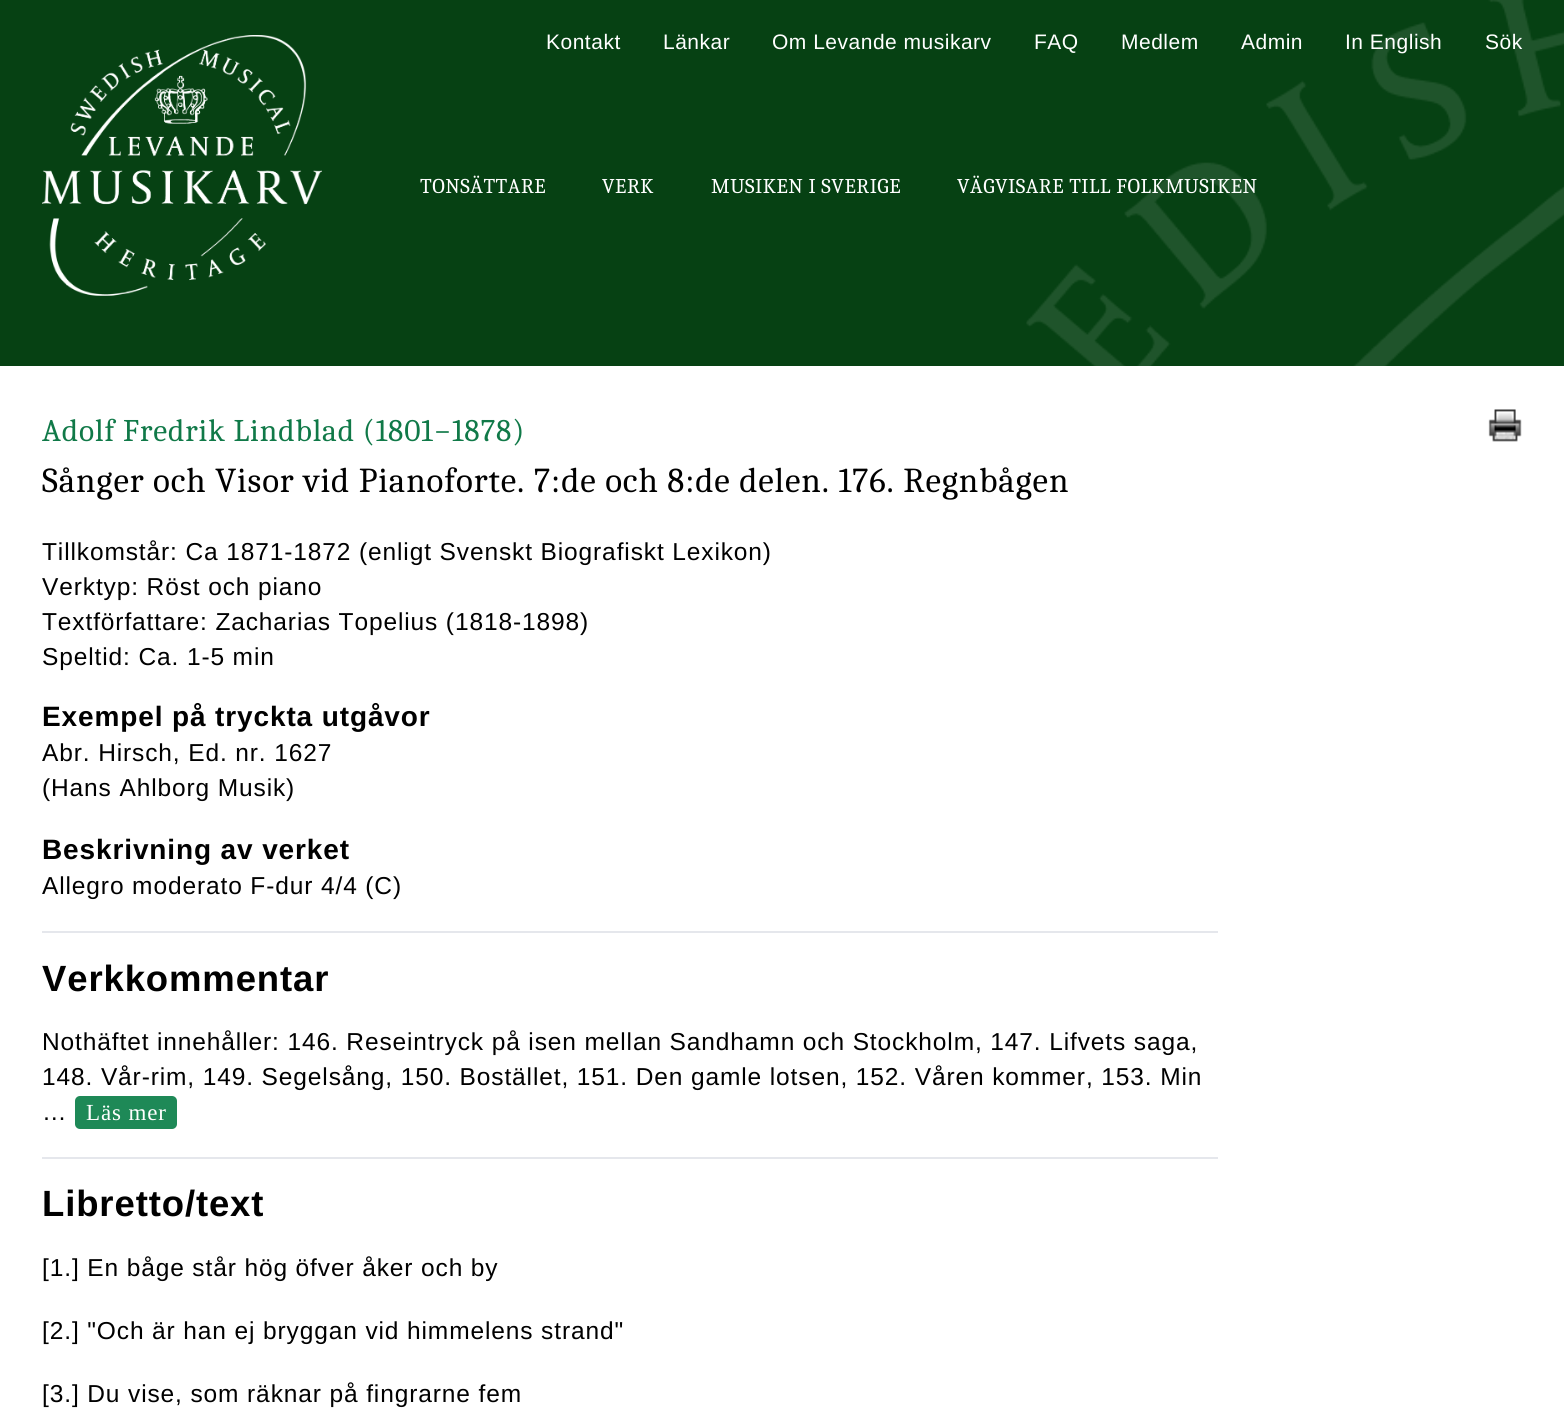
import math
import cairo


def write_spaced(ctx, x, y, s, letter, word):
	ctx.move_to(x, y)
	for ch in s:
		ctx.show_text(ch)
		ctx.rel_move_to(letter + word * (ch == ' '), 0)

def round_path(ctx, x, y, w, h, r):
	ctx.new_sub_path()
	for i, (u, v) in enumerate([(x + w - r, y + h - r), (x + r, y + h - r), (x + r, y + r), (x + w - r, y + r)]):
		ctx.arc(u, v, r, i * math.pi / 2, (i + 1) * math.pi / 2)
	ctx.close_path()

def paste(ctx, path, x, y, w, h):
	ctx.save()
	ctx.set_source_surface(cairo.ImageSurface.create_from_png(path), x, y)
	ctx.rectangle(x, y, w, h)
	ctx.fill()
	ctx.restore()

def draw(ctx):
	ctx.set_source_rgb(0.027, 0.255, 0.075)
	ctx.paint()
	paste(ctx, 'media/1.png', 1026, 0, 538, 366)
	paste(ctx, 'media/2.png', 42, 35, 280, 261)
	ctx.select_font_face('Liberation Sans')
	ctx.set_font_size(21)
	ctx.set_source_rgb(1, 1, 1)
	for x, y, s in [
		(546, 49, 'Kontakt'),
		(663, 49, 'Länkar'),
		(772, 49, 'Om Levande musikarv'),
		(1034, 49, 'FAQ'),
		(1121, 49, 'Medlem'),
		(1241, 49, 'Admin'),
		(1345, 49, 'In English'),
		(1485, 49, 'Sök'),
	]:
		write_spaced(ctx, x, y, s, 0.5, 0)
	ctx.select_font_face('Caladea')
	for x, y, s in [
		(420, 193, 'TONSÄTTARE'),
		(602, 193, 'VERK'),
		(711, 193, 'MUSIKEN I SVERIGE'),
		(957, 193, 'VÄGVISARE TILL FOLKMUSIKEN'),
	]:
		write_spaced(ctx, x, y, s, 0.5, 0)
	ctx.rectangle(0, 366, 1564, 1060)
	ctx.fill()
	ctx.set_font_size(31.5)
	ctx.set_source_rgb(0.063, 0.475, 0.282)
	write_spaced(ctx, 42, 441, 'Adolf Fredrik Lindblad (1801−1878)', 0.88, 0)
	paste(ctx, 'media/3.png', 1488, 409, 34, 33)
	ctx.set_font_size(35)
	ctx.set_source_rgb(0, 0, 0)
	write_spaced(ctx, 42, 492, 'Sånger och Visor vid Pianoforte. 7:de och 8:de delen. 176. Regnbågen', 0.88, 0)
	ctx.select_font_face('Liberation Sans')
	ctx.set_font_size(24.5)
	for x, y, s in [
		(42, 560, 'Tillkomstår: Ca 1871-1872 (enligt Svenskt Biografiskt Lexikon)'),
		(42, 595, 'Verktyp: Röst och piano'),
		(42, 630, 'Textförfattare: Zacharias Topelius (1818-1898)'),
		(42, 665, 'Speltid: Ca. 1-5 min'),
	]:
		write_spaced(ctx, x, y, s, 0.88, 0)
	ctx.select_font_face('Liberation Sans', cairo.FONT_SLANT_NORMAL, cairo.FONT_WEIGHT_BOLD)
	ctx.set_font_size(28)
	write_spaced(ctx, 42, 726, 'Exempel på tryckta utgåvor', 0.88, 0)
	ctx.select_font_face('Liberation Sans')
	ctx.set_font_size(24.5)
	write_spaced(ctx, 42, 761, 'Abr. Hirsch, Ed. nr. 1627', 0.88, 0)
	write_spaced(ctx, 42, 796, '(Hans Ahlborg Musik)', 0.88, 0)
	ctx.select_font_face('Liberation Sans', cairo.FONT_SLANT_NORMAL, cairo.FONT_WEIGHT_BOLD)
	ctx.set_font_size(28)
	write_spaced(ctx, 42, 859, 'Beskrivning av verket', 0.88, 0)
	ctx.select_font_face('Liberation Sans')
	ctx.set_font_size(24.5)
	write_spaced(ctx, 42, 894, 'Allegro moderato F-dur 4/4 (C)', 0.88, 0)
	ctx.set_source_rgb(0.898, 0.906, 0.922)
	ctx.rectangle(42, 931, 1176, 2)
	ctx.fill()
	ctx.select_font_face('Liberation Sans', cairo.FONT_SLANT_NORMAL, cairo.FONT_WEIGHT_BOLD)
	ctx.set_font_size(36.5)
	ctx.set_source_rgb(0, 0, 0)
	write_spaced(ctx, 42, 991, 'Verkkommentar', 0.88, 0)
	ctx.select_font_face('Liberation Sans')
	ctx.set_font_size(24.5)
	for x, y, s in [
		(42, 1050, 'Nothäftet innehåller: 146. Reseintryck på isen mellan Sandhamn och Stockholm, 147. Lifvets saga,'),
		(42, 1085, '148. Vår-rim, 149. Segelsång, 150. Bostället, 151. Den gamle lotsen, 152. Våren kommer, 153. Min'),
		(42, 1120, '…'),
	]:
		write_spaced(ctx, x, y, s, 0.88, 0)
	ctx.set_source_rgb(0.118, 0.537, 0.341)
	round_path(ctx, 75, 1096, 102, 33, 5)
	ctx.fill()
	ctx.select_font_face('Liberation Serif')
	ctx.set_font_size(23)
	ctx.set_source_rgb(1, 1, 1)
	write_spaced(ctx, 86, 1120, 'Läs mer', 0.88, 0)
	ctx.set_source_rgb(0.898, 0.906, 0.922)
	ctx.rectangle(42, 1157, 1176, 2)
	ctx.fill()
	ctx.select_font_face('Liberation Sans', cairo.FONT_SLANT_NORMAL, cairo.FONT_WEIGHT_BOLD)
	ctx.set_font_size(36.5)
	ctx.set_source_rgb(0, 0, 0)
	write_spaced(ctx, 42, 1216, 'Libretto/text', 0.88, 0)
	ctx.select_font_face('Liberation Sans')
	ctx.set_font_size(24.5)
	for x, y, s in [
		(42, 1276, '[1.] En båge står hög öfver åker och by'),
		(42, 1339, '[2.] "Och är han ej bryggan vid himmelens strand"'),
		(42, 1402, '[3.] Du vise, som räknar på fingrarne fem'),
	]:
		write_spaced(ctx, x, y, s, 0.88, 0)


surface = cairo.ImageSurface(cairo.FORMAT_RGB24, 1564, 1426)
ctx = cairo.Context(surface)
options = cairo.FontOptions()
options.set_hint_metrics(cairo.HINT_METRICS_OFF)
options.set_hint_style(cairo.HINT_STYLE_NONE)
ctx.set_font_options(options)
ctx.set_miter_limit(4)
draw(ctx)
surface.write_to_png('image.png')
